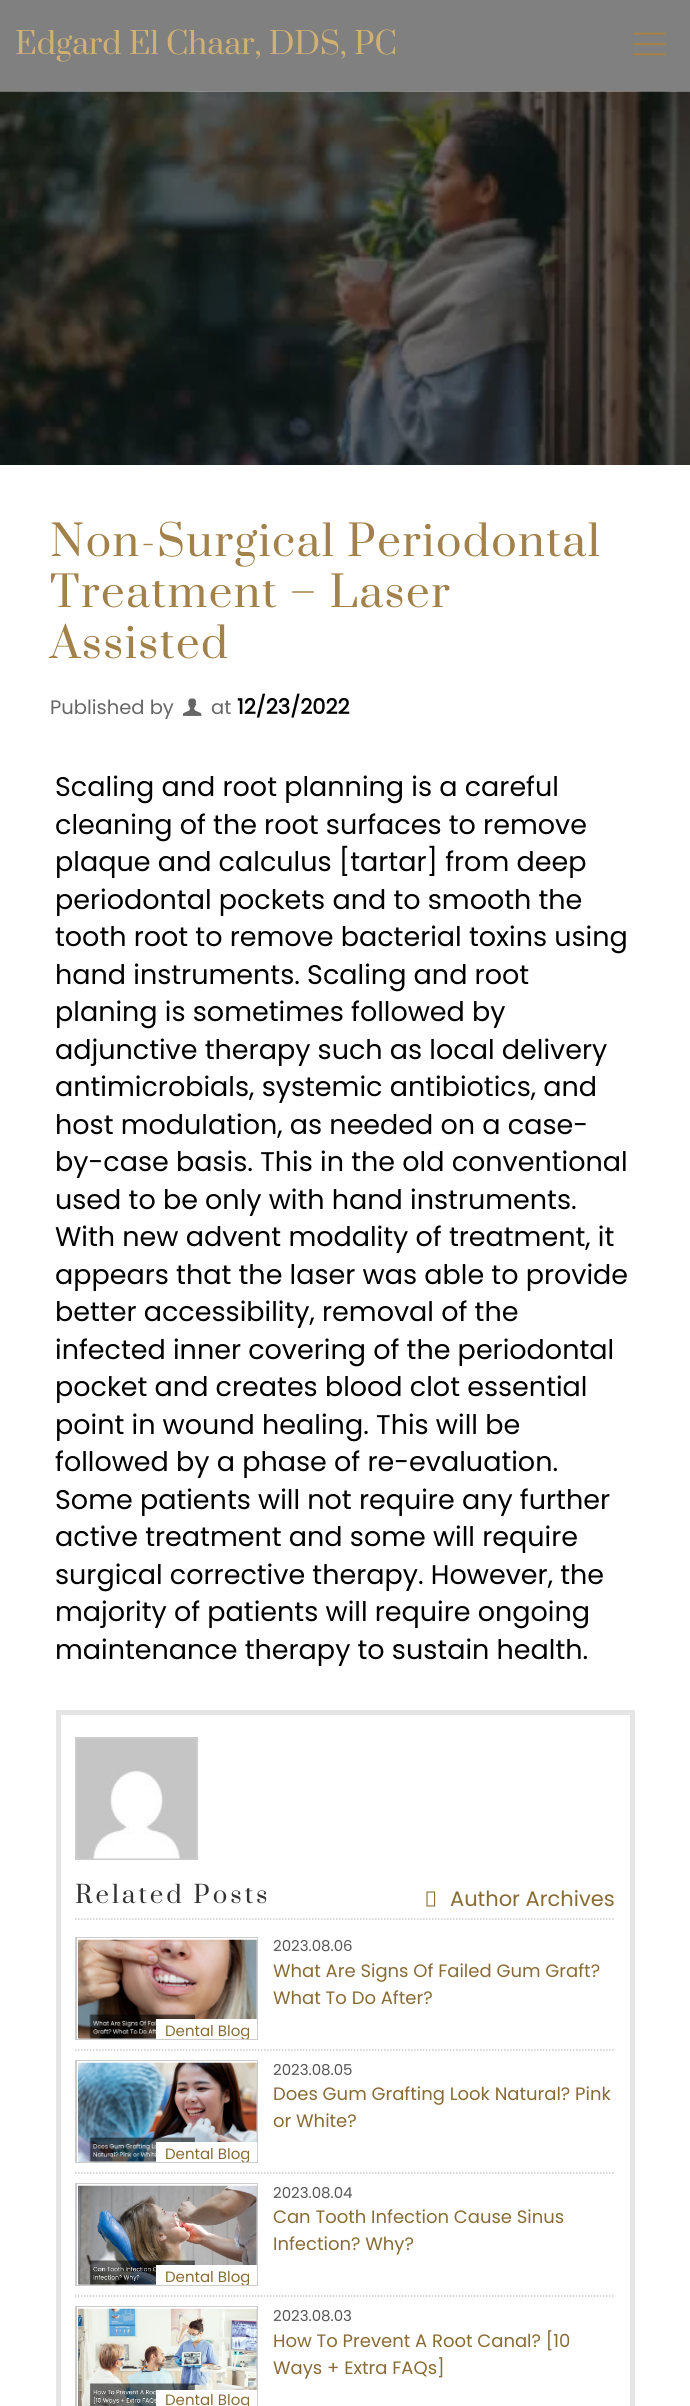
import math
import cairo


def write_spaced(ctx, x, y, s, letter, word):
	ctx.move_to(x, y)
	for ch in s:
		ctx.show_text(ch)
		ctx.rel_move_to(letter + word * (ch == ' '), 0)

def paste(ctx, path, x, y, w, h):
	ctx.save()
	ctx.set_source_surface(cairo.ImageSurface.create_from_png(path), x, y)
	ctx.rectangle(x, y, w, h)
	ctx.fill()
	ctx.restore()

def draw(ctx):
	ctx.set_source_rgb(1, 1, 1)
	ctx.paint()
	ctx.set_source_rgb(0.502, 0.502, 0.502)
	ctx.rectangle(0, 0, 690, 92)
	ctx.fill()
	ctx.select_font_face('Prata')
	ctx.set_font_size(30)
	ctx.set_source_rgb(0.82, 0.69, 0.451)
	ctx.move_to(15, 54)
	ctx.show_text('Edgard El Chaar, DDS, PC')
	paste(ctx, 'media/1.png', 633, 32, 33, 24)
	paste(ctx, 'media/2.png', 0, 91, 690, 374)
	ctx.set_font_size(42)
	ctx.set_source_rgb(0.635, 0.51, 0.29)
	for x, y, s in [
		(50, 556, 'Non-Surgical Periodontal'),
		(50, 607, 'Treatment – Laser'),
		(50, 658, 'Assisted'),
	]:
		write_spaced(ctx, x, y, s, 1.5, 0)
	ctx.select_font_face('Poppins')
	ctx.set_font_size(19.5)
	ctx.set_source_rgb(0.4, 0.4, 0.4)
	ctx.move_to(50, 714)
	ctx.show_text('Published by')
	paste(ctx, 'media/3.png', 183, 698, 19, 18)
	ctx.move_to(211, 714)
	ctx.show_text('at')
	ctx.select_font_face('Poppins', cairo.FONT_SLANT_NORMAL, cairo.FONT_WEIGHT_BOLD)
	ctx.set_font_size(21)
	ctx.set_source_rgb(0, 0, 0)
	ctx.move_to(237, 714)
	ctx.show_text('12/23/2022')
	ctx.select_font_face('Poppins')
	ctx.set_font_size(27)
	for x, y, s in [
		(55, 796, 'Scaling and root planning is a careful'),
		(55, 834, 'cleaning of the root surfaces to remove'),
		(55, 871, 'plaque and calculus [tartar] from deep'),
		(55, 909, 'periodontal pockets and to smooth the'),
		(55, 946, 'tooth root to remove bacterial toxins using'),
		(55, 984, 'hand instruments. Scaling and root'),
		(55, 1021, 'planing is sometimes followed by'),
		(55, 1059, 'adjunctive therapy such as local delivery'),
		(55, 1096, 'antimicrobials, systemic antibiotics, and'),
		(55, 1134, 'host modulation, as needed on a case-'),
		(55, 1171, 'by-case basis. This in the old conventional'),
		(55, 1209, 'used to be only with hand instruments.'),
		(55, 1246, 'With new advent modality of treatment, it'),
		(55, 1284, 'appears that the laser was able to provide'),
		(55, 1321, 'better accessibility, removal of the'),
		(55, 1359, 'infected inner covering of the periodontal'),
		(55, 1396, 'pocket and creates blood clot essential'),
		(55, 1434, 'point in wound healing. This will be'),
		(55, 1471, 'followed by a phase of re-evaluation.'),
		(55, 1509, 'Some patients will not require any further'),
		(55, 1546, 'active treatment and some will require'),
		(55, 1584, 'surgical corrective therapy. However, the'),
		(55, 1621, 'majority of patients will require ongoing'),
		(55, 1659, 'maintenance therapy to sustain health.'),
	]:
		ctx.move_to(x, y)
		ctx.show_text(s)
	ctx.rectangle(58.5, 1712.5, 574, 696)
	ctx.set_source_rgb(0.898, 0.898, 0.898)
	ctx.set_line_width(5)
	ctx.stroke()
	ctx.rectangle(76, 1738, 121, 121)
	ctx.set_source_rgb(0.8, 0.8, 0.8)
	ctx.set_line_width(2)
	ctx.stroke()
	paste(ctx, 'media/4.png', 77, 1739, 119, 120)
	ctx.new_path()
	ctx.move_to(75, 1919)
	ctx.line_to(615, 1919)
	ctx.set_line_width(1.5)
	ctx.set_dash([1.5, 1.5])
	ctx.stroke()
	ctx.select_font_face('Prata')
	ctx.set_font_size(24)
	ctx.set_source_rgb(0.2, 0.2, 0.2)
	write_spaced(ctx, 75, 1903, 'Related Posts', 3, 0)
	paste(ctx, 'media/5.png', 426, 1891, 10, 16)
	ctx.select_font_face('Poppins')
	ctx.set_font_size(21)
	ctx.set_source_rgb(0.533, 0.42, 0.208)
	ctx.move_to(450, 1906)
	ctx.show_text('Author Archives')
	ctx.new_path()
	ctx.move_to(75, 2050)
	ctx.line_to(615, 2050)
	ctx.set_source_rgb(0.8, 0.8, 0.8)
	ctx.stroke()
	ctx.set_font_size(15)
	ctx.set_source_rgb(0.333, 0.333, 0.333)
	ctx.move_to(273, 1951)
	ctx.show_text('2023.08.06')
	ctx.set_font_size(18)
	ctx.set_source_rgb(0.533, 0.42, 0.208)
	ctx.move_to(273, 1977)
	ctx.show_text('What Are Signs Of Failed Gum Graft?')
	ctx.move_to(273, 2004)
	ctx.show_text('What To Do After?')
	ctx.rectangle(76, 1938, 181, 101)
	ctx.set_source_rgb(0.8, 0.8, 0.8)
	ctx.set_line_width(2)
	ctx.set_dash([])
	ctx.stroke()
	ctx.save()
	ctx.rectangle(77, 1938, 180, 101)
	ctx.clip()
	ctx.rectangle(78, 1939, 181, 102)
	ctx.set_source_rgb(1, 1, 1)
	ctx.stroke()
	ctx.restore()
	paste(ctx, 'media/6.png', 78, 1939, 179, 100)
	ctx.set_source_rgb(1, 1, 1)
	ctx.rectangle(156, 2019, 101, 20)
	ctx.fill()
	ctx.save()
	ctx.rectangle(78, 1940, 179, 99)
	ctx.clip()
	ctx.set_font_size(15)
	ctx.set_source_rgb(0.533, 0.42, 0.208)
	ctx.move_to(165, 2036)
	ctx.show_text('Dental Blog')
	ctx.restore()
	ctx.new_path()
	ctx.move_to(75, 2173)
	ctx.line_to(615, 2173)
	ctx.set_source_rgb(0.8, 0.8, 0.8)
	ctx.set_line_width(1.5)
	ctx.set_dash([1.5, 1.5])
	ctx.stroke()
	ctx.set_font_size(15)
	ctx.set_source_rgb(0.333, 0.333, 0.333)
	ctx.move_to(273, 2075)
	ctx.show_text('2023.08.05')
	ctx.set_font_size(18)
	ctx.set_source_rgb(0.533, 0.42, 0.208)
	ctx.move_to(273, 2100)
	ctx.show_text('Does Gum Grafting Look Natural? Pink')
	ctx.move_to(273, 2127)
	ctx.show_text('or White?')
	ctx.rectangle(76, 2061, 181, 101)
	ctx.set_source_rgb(0.8, 0.8, 0.8)
	ctx.set_line_width(2)
	ctx.set_dash([])
	ctx.stroke()
	ctx.save()
	ctx.rectangle(77, 2061, 180, 101)
	ctx.clip()
	ctx.rectangle(78, 2062, 181, 102)
	ctx.set_source_rgb(1, 1, 1)
	ctx.stroke()
	ctx.restore()
	paste(ctx, 'media/7.png', 78, 2062, 179, 100)
	ctx.set_source_rgb(1, 1, 1)
	ctx.rectangle(156, 2142, 101, 20)
	ctx.fill()
	ctx.save()
	ctx.rectangle(78, 2063, 179, 99)
	ctx.clip()
	ctx.set_font_size(15)
	ctx.set_source_rgb(0.533, 0.42, 0.208)
	ctx.move_to(165, 2159)
	ctx.show_text('Dental Blog')
	ctx.restore()
	ctx.new_path()
	ctx.move_to(75, 2296)
	ctx.line_to(615, 2296)
	ctx.set_source_rgb(0.8, 0.8, 0.8)
	ctx.set_line_width(1.5)
	ctx.set_dash([1.5, 1.5])
	ctx.stroke()
	ctx.set_font_size(15)
	ctx.set_source_rgb(0.333, 0.333, 0.333)
	ctx.move_to(273, 2198)
	ctx.show_text('2023.08.04')
	ctx.set_font_size(18)
	ctx.set_source_rgb(0.533, 0.42, 0.208)
	ctx.move_to(273, 2223)
	ctx.show_text('Can Tooth Infection Cause Sinus')
	ctx.move_to(273, 2250)
	ctx.show_text('Infection? Why?')
	ctx.rectangle(76, 2184, 181, 101)
	ctx.set_source_rgb(0.8, 0.8, 0.8)
	ctx.set_line_width(2)
	ctx.set_dash([])
	ctx.stroke()
	ctx.save()
	ctx.rectangle(77, 2184, 180, 101)
	ctx.clip()
	ctx.rectangle(78, 2185, 181, 102)
	ctx.set_source_rgb(1, 1, 1)
	ctx.stroke()
	ctx.restore()
	paste(ctx, 'media/8.png', 78, 2185, 179, 100)
	ctx.set_source_rgb(1, 1, 1)
	ctx.rectangle(156, 2265, 101, 20)
	ctx.fill()
	ctx.save()
	ctx.rectangle(78, 2186, 179, 99)
	ctx.clip()
	ctx.set_font_size(15)
	ctx.set_source_rgb(0.533, 0.42, 0.208)
	ctx.move_to(165, 2282)
	ctx.show_text('Dental Blog')
	ctx.restore()
	ctx.set_font_size(15)
	ctx.set_source_rgb(0.333, 0.333, 0.333)
	ctx.move_to(273, 2321)
	ctx.show_text('2023.08.03')
	ctx.set_font_size(18)
	ctx.set_source_rgb(0.533, 0.42, 0.208)
	ctx.move_to(273, 2347)
	ctx.show_text('How To Prevent A Root Canal? [10')
	ctx.move_to(273, 2374)
	ctx.show_text('Ways + Extra FAQs]')
	ctx.rectangle(76, 2307, 181, 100)
	ctx.set_source_rgb(0.8, 0.8, 0.8)
	ctx.stroke()
	ctx.save()
	ctx.rectangle(77, 2307, 180, 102)
	ctx.clip()
	ctx.rectangle(78, 2308, 181, 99)
	ctx.set_source_rgb(1, 1, 1)
	ctx.stroke()
	ctx.restore()
	paste(ctx, 'media/9.png', 78, 2308, 179, 98)
	ctx.set_source_rgb(1, 1, 1)
	ctx.rectangle(156, 2390, 101, 16)
	ctx.fill()
	ctx.set_font_size(15)
	ctx.set_source_rgb(0.533, 0.42, 0.208)
	ctx.move_to(165, 2405)
	ctx.show_text('Dental Blog')


surface = cairo.ImageSurface(cairo.FORMAT_RGB24, 690, 2406)
ctx = cairo.Context(surface)
options = cairo.FontOptions()
options.set_hint_metrics(cairo.HINT_METRICS_OFF)
options.set_hint_style(cairo.HINT_STYLE_NONE)
ctx.set_font_options(options)
ctx.set_miter_limit(4)
draw(ctx)
surface.write_to_png('image.png')
